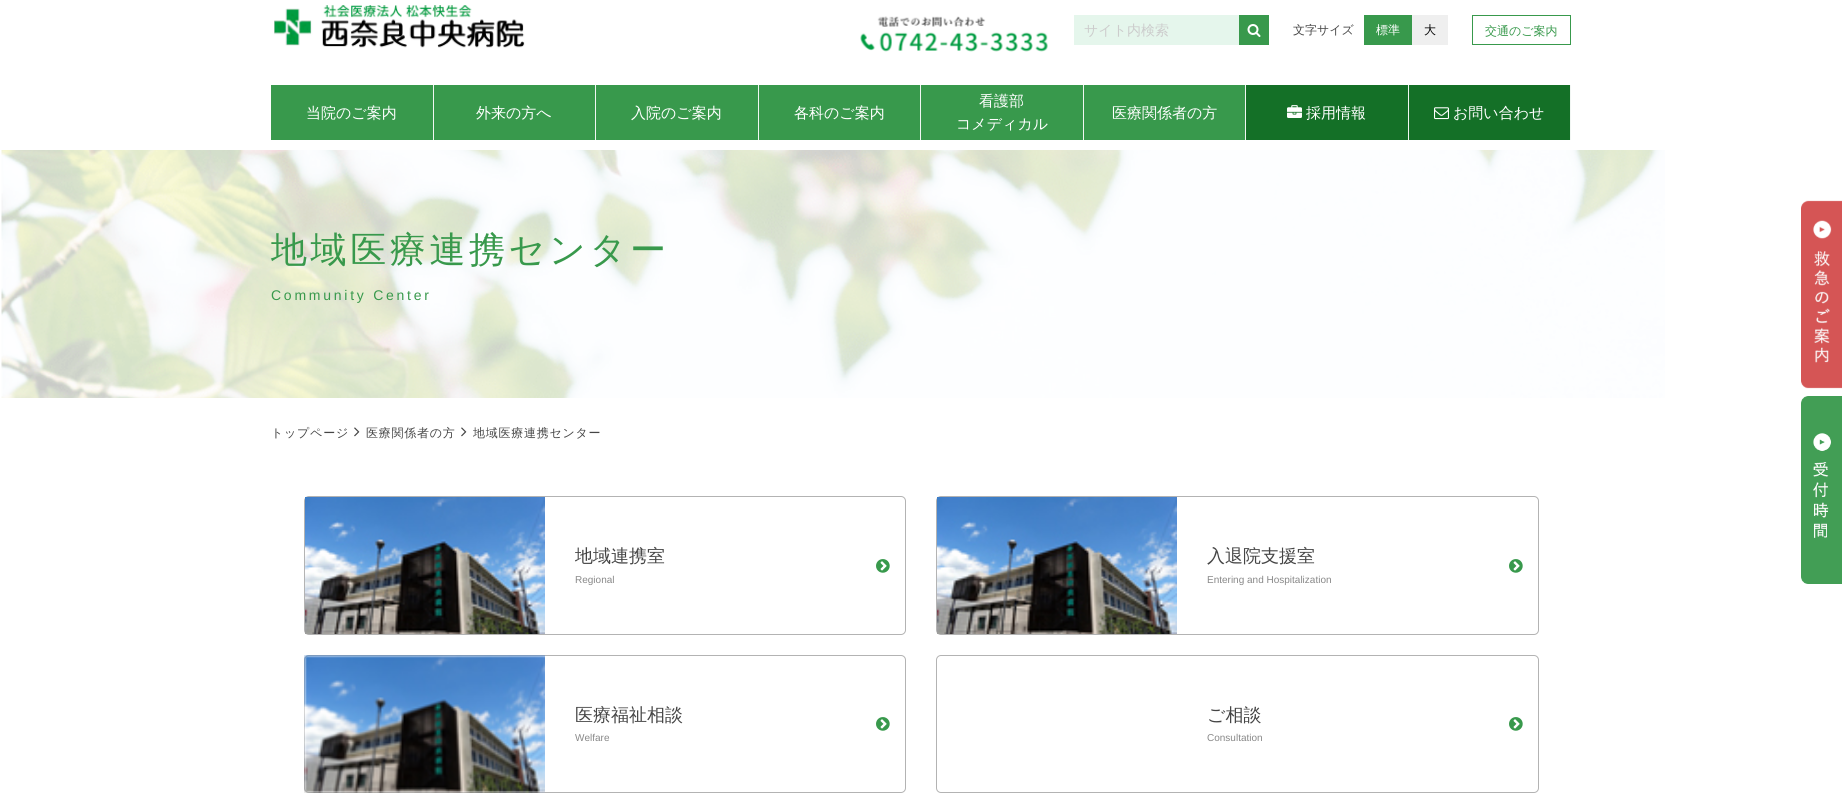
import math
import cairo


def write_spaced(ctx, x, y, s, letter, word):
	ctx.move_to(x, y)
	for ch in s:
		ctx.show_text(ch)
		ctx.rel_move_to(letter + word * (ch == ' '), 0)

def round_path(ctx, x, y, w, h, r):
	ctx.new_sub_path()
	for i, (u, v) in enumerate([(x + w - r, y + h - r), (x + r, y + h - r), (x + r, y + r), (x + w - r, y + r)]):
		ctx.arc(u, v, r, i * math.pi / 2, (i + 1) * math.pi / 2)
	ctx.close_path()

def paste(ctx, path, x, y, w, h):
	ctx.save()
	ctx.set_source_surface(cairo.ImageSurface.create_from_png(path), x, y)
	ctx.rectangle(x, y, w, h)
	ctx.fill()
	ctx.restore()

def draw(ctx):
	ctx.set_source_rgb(1, 1, 1)
	ctx.paint()
	paste(ctx, 'media/1.png', 274, 5, 251, 43)
	paste(ctx, 'media/2.png', 860, 16, 188, 36)
	ctx.set_source_rgb(0.898, 0.961, 0.922)
	ctx.rectangle(1074, 15, 165, 30)
	ctx.fill()
	ctx.select_font_face('WenQuanYi Zen Hei Medium')
	ctx.set_font_size(14)
	ctx.set_source_rgb(0.8, 0.8, 0.8)
	ctx.move_to(1084, 35)
	ctx.show_text('サイト内検索')
	ctx.set_source_rgb(0.22, 0.6, 0.298)
	ctx.rectangle(1239, 15, 30, 30)
	ctx.fill()
	paste(ctx, 'media/3.png', 1247, 24, 14, 13)
	ctx.set_font_size(12)
	ctx.set_source_rgb(0.271, 0.271, 0.271)
	ctx.move_to(1293, 34)
	ctx.show_text('文字サイズ')
	ctx.set_source_rgb(0.22, 0.6, 0.298)
	ctx.rectangle(1364, 15, 48, 30)
	ctx.fill()
	ctx.set_source_rgb(1, 1, 1)
	ctx.move_to(1376, 34)
	ctx.show_text('標準')
	ctx.set_source_rgb(0.937, 0.937, 0.937)
	ctx.rectangle(1412, 15, 36, 30)
	ctx.fill()
	ctx.set_source_rgb(0, 0, 0)
	ctx.move_to(1424, 34)
	ctx.show_text('大')
	ctx.rectangle(1472.5, 15.5, 98, 29)
	ctx.set_source_rgb(0.22, 0.6, 0.298)
	ctx.set_line_width(1)
	ctx.stroke()
	ctx.move_to(1485, 35)
	ctx.show_text('交通のご案内')
	ctx.rectangle(271, 85, 162, 55)
	ctx.fill()
	ctx.set_source_rgb(0.945, 0.961, 0.953)
	ctx.rectangle(433, 85, 1, 55)
	ctx.fill()
	ctx.set_font_size(15)
	ctx.set_source_rgb(1, 1, 1)
	ctx.move_to(306, 118)
	ctx.show_text('当院のご案内')
	ctx.set_source_rgb(0.22, 0.6, 0.298)
	ctx.rectangle(434, 85, 161, 55)
	ctx.fill()
	ctx.set_source_rgb(0.945, 0.961, 0.953)
	ctx.rectangle(595, 85, 1, 55)
	ctx.fill()
	ctx.set_source_rgb(1, 1, 1)
	ctx.move_to(476, 118)
	ctx.show_text('外来の方へ')
	ctx.set_source_rgb(0.22, 0.6, 0.298)
	ctx.rectangle(596, 85, 162, 55)
	ctx.fill()
	ctx.set_source_rgb(0.945, 0.961, 0.953)
	ctx.rectangle(758, 85, 1, 55)
	ctx.fill()
	ctx.set_source_rgb(1, 1, 1)
	ctx.move_to(631, 118)
	ctx.show_text('入院のご案内')
	ctx.set_source_rgb(0.22, 0.6, 0.298)
	ctx.rectangle(759, 85, 161, 55)
	ctx.fill()
	ctx.set_source_rgb(0.945, 0.961, 0.953)
	ctx.rectangle(920, 85, 1, 55)
	ctx.fill()
	ctx.set_source_rgb(1, 1, 1)
	ctx.move_to(794, 118)
	ctx.show_text('各科のご案内')
	ctx.set_source_rgb(0.22, 0.6, 0.298)
	ctx.rectangle(921, 85, 162, 55)
	ctx.fill()
	ctx.set_source_rgb(0.945, 0.961, 0.953)
	ctx.rectangle(1083, 85, 1, 55)
	ctx.fill()
	ctx.set_source_rgb(1, 1, 1)
	ctx.move_to(979, 106)
	ctx.show_text('看護部')
	ctx.move_to(956, 129)
	ctx.show_text('コメディカル')
	ctx.set_source_rgb(0.22, 0.6, 0.298)
	ctx.rectangle(1084, 85, 161, 55)
	ctx.fill()
	ctx.set_source_rgb(0.945, 0.961, 0.953)
	ctx.rectangle(1245, 85, 1, 55)
	ctx.fill()
	ctx.set_source_rgb(1, 1, 1)
	ctx.move_to(1112, 118)
	ctx.show_text('医療関係者の方')
	ctx.set_source_rgb(0.082, 0.439, 0.153)
	ctx.rectangle(1246, 85, 162, 55)
	ctx.fill()
	ctx.set_source_rgb(0.945, 0.961, 0.953)
	ctx.rectangle(1408, 85, 1, 55)
	ctx.fill()
	paste(ctx, 'media/4.png', 1287, 105, 15, 13)
	ctx.set_source_rgb(1, 1, 1)
	ctx.move_to(1306, 118)
	ctx.show_text('採用情報')
	ctx.set_source_rgb(0.082, 0.439, 0.153)
	ctx.rectangle(1409, 85, 161, 55)
	ctx.fill()
	ctx.set_source_rgb(0.945, 0.961, 0.953)
	ctx.rectangle(1570, 85, 1, 55)
	ctx.fill()
	paste(ctx, 'media/5.png', 1434, 107, 15, 13)
	ctx.set_source_rgb(1, 1, 1)
	ctx.move_to(1453, 118)
	ctx.show_text('お問い合わせ')
	paste(ctx, 'media/6.png', 1, 150, 1664, 248)
	ctx.set_font_size(36)
	ctx.set_source_rgb(0.22, 0.6, 0.298)
	write_spaced(ctx, 271, 262, '地域医療連携センター', 3.6, 0)
	ctx.select_font_face('Liberation Sans')
	ctx.set_font_size(14)
	write_spaced(ctx, 271, 300, 'Community Center', 2.75, 0)
	paste(ctx, 'media/7.png', 1801, 200, 41, 189)
	paste(ctx, 'media/8.png', 1801, 396, 41, 188)
	ctx.select_font_face('WenQuanYi Zen Hei Medium')
	ctx.set_font_size(12)
	ctx.set_source_rgb(0.271, 0.271, 0.271)
	write_spaced(ctx, 271, 437, 'トップページ', 0.75, 0)
	paste(ctx, 'media/9.png', 354, 427, 6, 10)
	write_spaced(ctx, 366, 437, '医療関係者の方', 0.75, 0)
	paste(ctx, 'media/9.png', 461, 427, 6, 10)
	write_spaced(ctx, 473, 437, '地域医療連携センター', 0.75, 0)
	round_path(ctx, 304.5, 496.5, 601, 138, 4.5)
	ctx.set_source_rgb(0.702, 0.702, 0.702)
	ctx.stroke()
	paste(ctx, 'media/10.png', 305, 497, 240, 137)
	ctx.set_font_size(18)
	ctx.set_source_rgb(0.271, 0.271, 0.271)
	ctx.move_to(575, 562)
	ctx.show_text('地域連携室')
	ctx.select_font_face('Liberation Sans')
	ctx.set_font_size(10)
	ctx.set_source_rgb(0.533, 0.533, 0.533)
	ctx.move_to(575, 583)
	ctx.show_text('Regional')
	paste(ctx, 'media/11.png', 876, 559, 14, 14)
	round_path(ctx, 936.5, 496.5, 602, 138, 4.5)
	ctx.set_source_rgb(0.702, 0.702, 0.702)
	ctx.stroke()
	paste(ctx, 'media/10.png', 937, 497, 240, 137)
	ctx.select_font_face('WenQuanYi Zen Hei Medium')
	ctx.set_font_size(18)
	ctx.set_source_rgb(0.271, 0.271, 0.271)
	ctx.move_to(1207, 562)
	ctx.show_text('入退院支援室')
	ctx.select_font_face('Liberation Sans')
	ctx.set_font_size(10)
	ctx.set_source_rgb(0.533, 0.533, 0.533)
	ctx.move_to(1207, 583)
	ctx.show_text('Entering and Hospitalization')
	paste(ctx, 'media/11.png', 1509, 559, 14, 14)
	round_path(ctx, 304.5, 655.5, 601, 137, 4.5)
	ctx.set_source_rgb(0.702, 0.702, 0.702)
	ctx.stroke()
	paste(ctx, 'media/12.png', 304, 655, 241, 138)
	ctx.select_font_face('WenQuanYi Zen Hei Medium')
	ctx.set_font_size(18)
	ctx.set_source_rgb(0.271, 0.271, 0.271)
	ctx.move_to(575, 721)
	ctx.show_text('医療福祉相談')
	ctx.select_font_face('Liberation Sans')
	ctx.set_font_size(10)
	ctx.set_source_rgb(0.533, 0.533, 0.533)
	ctx.move_to(575, 741)
	ctx.show_text('Welfare')
	paste(ctx, 'media/11.png', 876, 717, 14, 14)
	round_path(ctx, 936.5, 655.5, 602, 137, 4.5)
	ctx.set_source_rgb(0.702, 0.702, 0.702)
	ctx.stroke()
	ctx.select_font_face('WenQuanYi Zen Hei Medium')
	ctx.set_font_size(18)
	ctx.set_source_rgb(0.271, 0.271, 0.271)
	ctx.move_to(1207, 721)
	ctx.show_text('ご相談')
	ctx.select_font_face('Liberation Sans')
	ctx.set_font_size(10)
	ctx.set_source_rgb(0.533, 0.533, 0.533)
	ctx.move_to(1207, 741)
	ctx.show_text('Consultation')
	paste(ctx, 'media/11.png', 1509, 717, 14, 14)


surface = cairo.ImageSurface(cairo.FORMAT_RGB24, 1842, 793)
ctx = cairo.Context(surface)
options = cairo.FontOptions()
options.set_hint_metrics(cairo.HINT_METRICS_OFF)
options.set_hint_style(cairo.HINT_STYLE_NONE)
ctx.set_font_options(options)
ctx.set_miter_limit(4)
draw(ctx)
surface.write_to_png('image.png')
